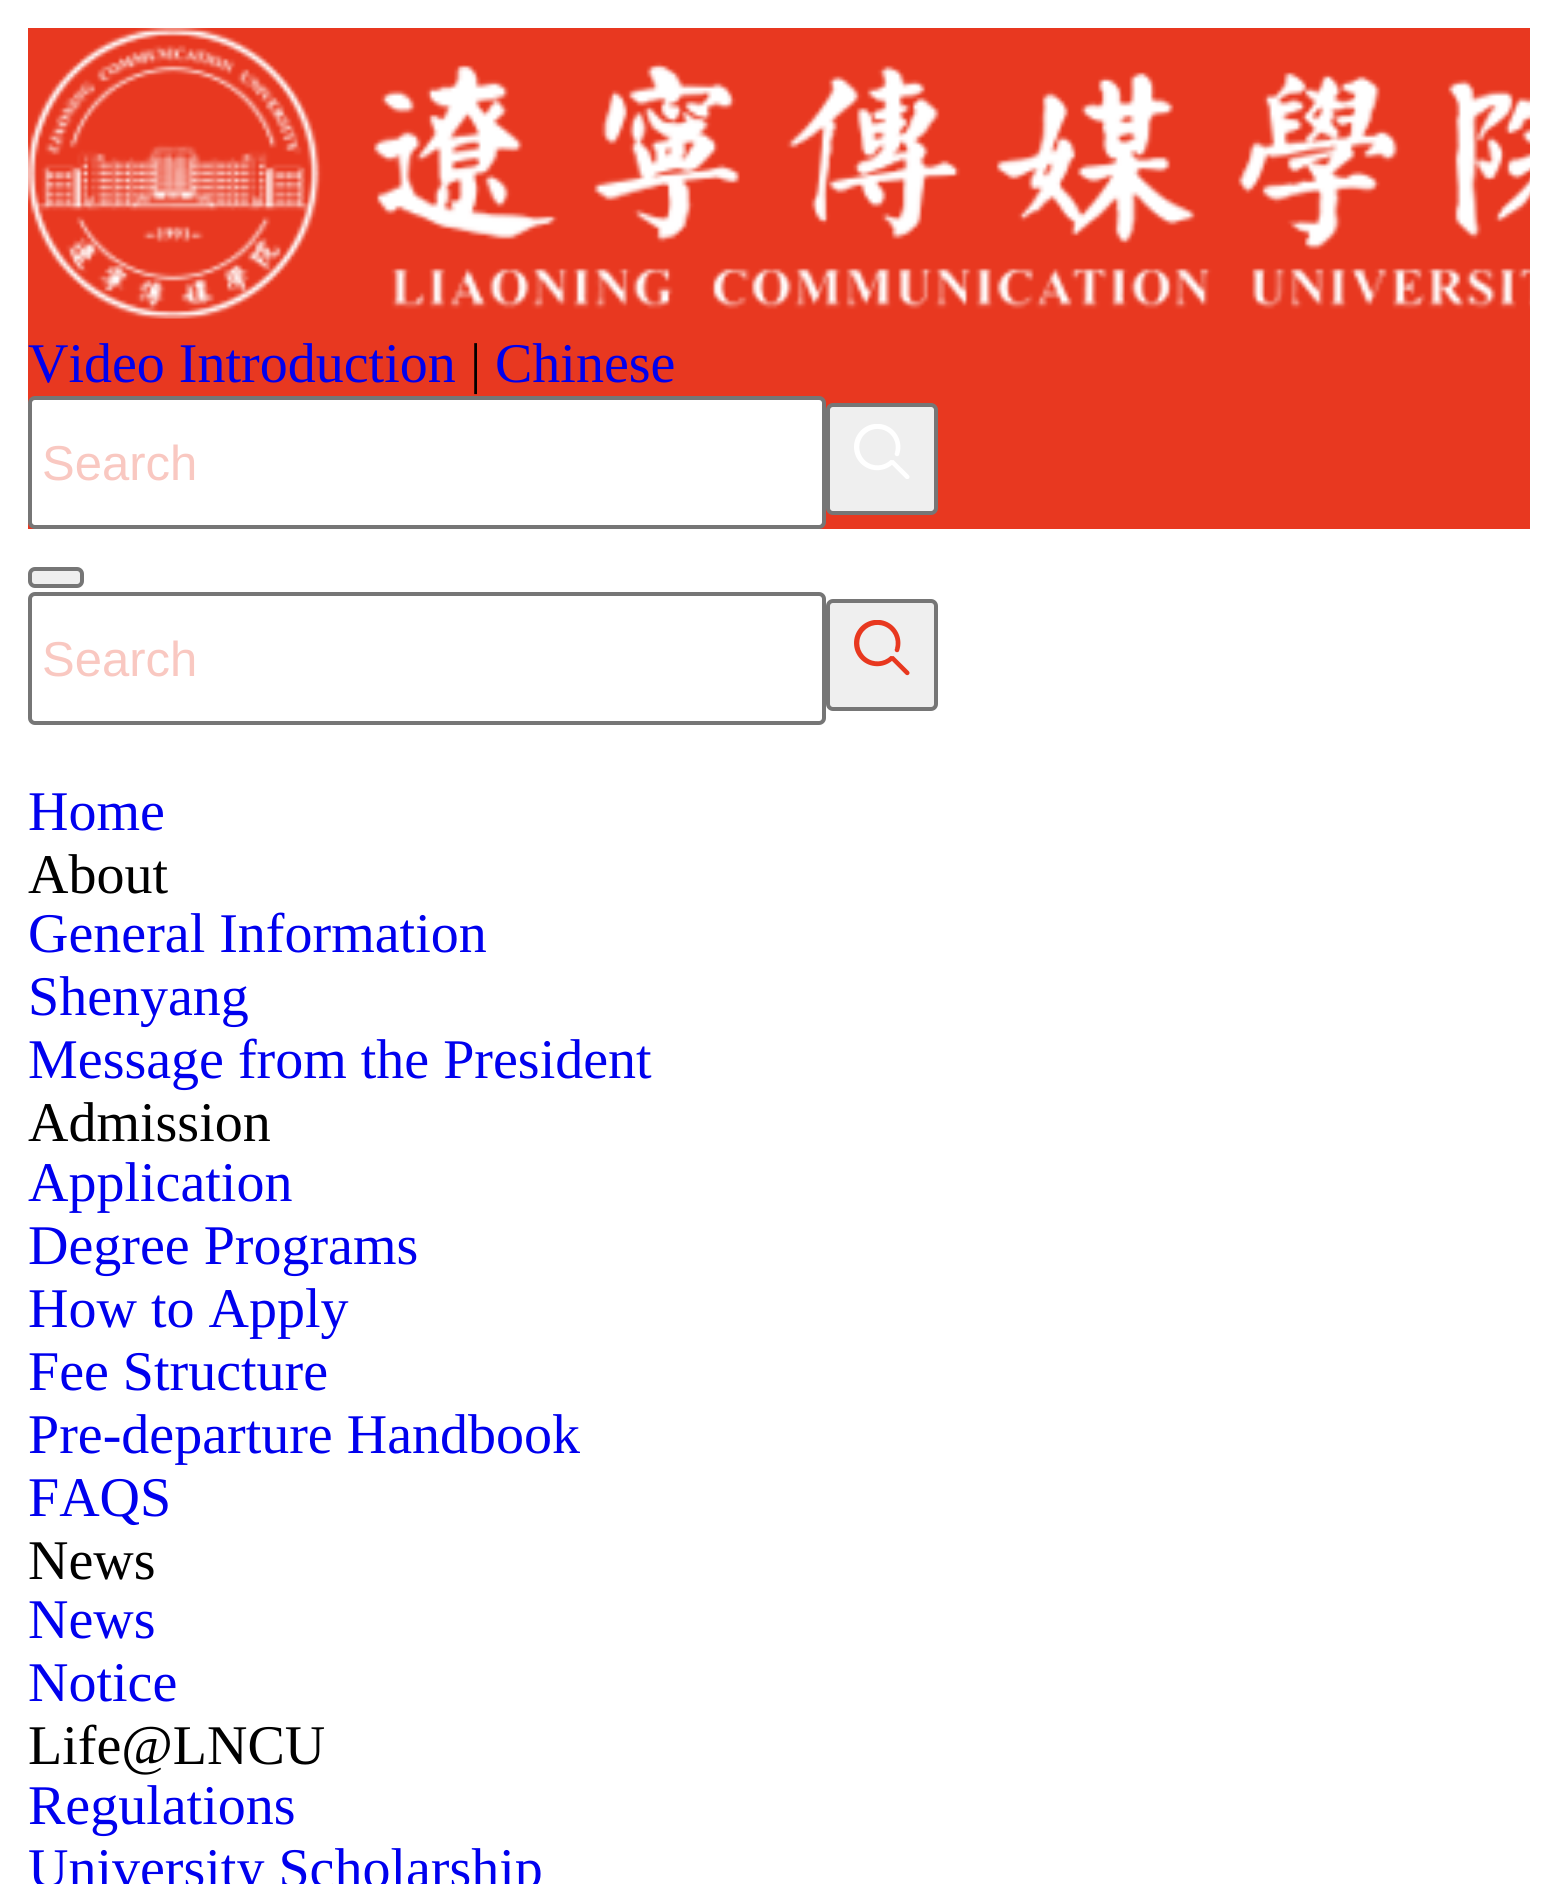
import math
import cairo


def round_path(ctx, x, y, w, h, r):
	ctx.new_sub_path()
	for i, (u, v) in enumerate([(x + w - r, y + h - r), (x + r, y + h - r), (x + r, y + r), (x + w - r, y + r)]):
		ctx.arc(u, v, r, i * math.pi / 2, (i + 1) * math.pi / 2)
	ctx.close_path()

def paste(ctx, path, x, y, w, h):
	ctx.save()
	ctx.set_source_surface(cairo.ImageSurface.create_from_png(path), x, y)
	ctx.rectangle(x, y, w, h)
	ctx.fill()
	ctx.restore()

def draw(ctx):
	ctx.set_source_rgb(1, 1, 1)
	ctx.paint()
	ctx.set_source_rgb(0.91, 0.22, 0.125)
	ctx.rectangle(28, 28, 1502, 501)
	ctx.fill()
	paste(ctx, 'media/1.png', 28, 28, 1502, 291)
	ctx.select_font_face('Liberation Serif')
	ctx.set_font_size(56)
	ctx.set_source_rgb(0, 0, 0.933)
	ctx.move_to(28, 382)
	ctx.show_text('Video Introduction')
	ctx.set_source_rgb(0, 0, 0)
	ctx.move_to(470, 382)
	ctx.show_text('|')
	ctx.set_source_rgb(0, 0, 0.933)
	ctx.move_to(495, 382)
	ctx.show_text('Chinese')
	ctx.set_source_rgb(1, 1, 1)
	round_path(ctx, 30, 398, 794, 129, 5)
	ctx.fill_preserve()
	ctx.set_source_rgb(0.463, 0.463, 0.463)
	ctx.set_line_width(4)
	ctx.stroke()
	ctx.select_font_face('Liberation Sans')
	ctx.set_font_size(49)
	ctx.set_source_rgb(0.976, 0.784, 0.757)
	ctx.move_to(42, 480)
	ctx.show_text('Search')
	ctx.set_source_rgb(0.937, 0.937, 0.937)
	round_path(ctx, 828, 405, 108, 108, 5)
	ctx.fill_preserve()
	ctx.set_source_rgb(0.463, 0.463, 0.463)
	ctx.stroke()
	paste(ctx, 'media/2.png', 854, 424, 56, 55)
	ctx.set_source_rgb(0.937, 0.937, 0.937)
	round_path(ctx, 30, 569, 52, 17, 5)
	ctx.fill_preserve()
	ctx.set_source_rgb(0.463, 0.463, 0.463)
	ctx.stroke()
	round_path(ctx, 30, 594, 794, 129, 5)
	ctx.stroke()
	ctx.set_source_rgb(0.976, 0.784, 0.757)
	ctx.move_to(42, 676)
	ctx.show_text('Search')
	ctx.set_source_rgb(0.937, 0.937, 0.937)
	round_path(ctx, 828, 601, 108, 108, 5)
	ctx.fill_preserve()
	ctx.set_source_rgb(0.463, 0.463, 0.463)
	ctx.stroke()
	paste(ctx, 'media/3.png', 854, 620, 56, 56)
	ctx.select_font_face('Liberation Serif')
	ctx.set_font_size(56)
	ctx.set_source_rgb(0, 0, 0.933)
	ctx.move_to(28, 830)
	ctx.show_text('Home')
	ctx.set_source_rgb(0, 0, 0)
	ctx.move_to(28, 893)
	ctx.show_text('About')
	ctx.set_source_rgb(0, 0, 0.933)
	for x, y, s in [
		(28, 952, 'General Information'),
		(28, 1015, 'Shenyang'),
		(28, 1078, 'Message from the President'),
	]:
		ctx.move_to(x, y)
		ctx.show_text(s)
	ctx.set_source_rgb(0, 0, 0)
	ctx.move_to(28, 1141)
	ctx.show_text('Admission')
	ctx.set_source_rgb(0, 0, 0.933)
	for x, y, s in [
		(28, 1201, 'Application'),
		(28, 1264, 'Degree Programs'),
		(28, 1327, 'How to Apply'),
		(28, 1390, 'Fee Structure'),
		(28, 1453, 'Pre-departure Handbook'),
		(28, 1516, 'FAQS'),
	]:
		ctx.move_to(x, y)
		ctx.show_text(s)
	ctx.set_source_rgb(0, 0, 0)
	ctx.move_to(28, 1579)
	ctx.show_text('News')
	ctx.set_source_rgb(0, 0, 0.933)
	ctx.move_to(28, 1638)
	ctx.show_text('News')
	ctx.move_to(28, 1701)
	ctx.show_text('Notice')
	ctx.set_source_rgb(0, 0, 0)
	ctx.move_to(28, 1764)
	ctx.show_text('Life@LNCU')
	ctx.set_source_rgb(0, 0, 0.933)
	ctx.move_to(28, 1824)
	ctx.show_text('Regulations')
	ctx.move_to(28, 1887)
	ctx.show_text('University Scholarship')


surface = cairo.ImageSurface(cairo.FORMAT_RGB24, 1556, 1884)
ctx = cairo.Context(surface)
options = cairo.FontOptions()
options.set_hint_metrics(cairo.HINT_METRICS_OFF)
options.set_hint_style(cairo.HINT_STYLE_NONE)
ctx.set_font_options(options)
ctx.set_miter_limit(4)
draw(ctx)
surface.write_to_png('image.png')
